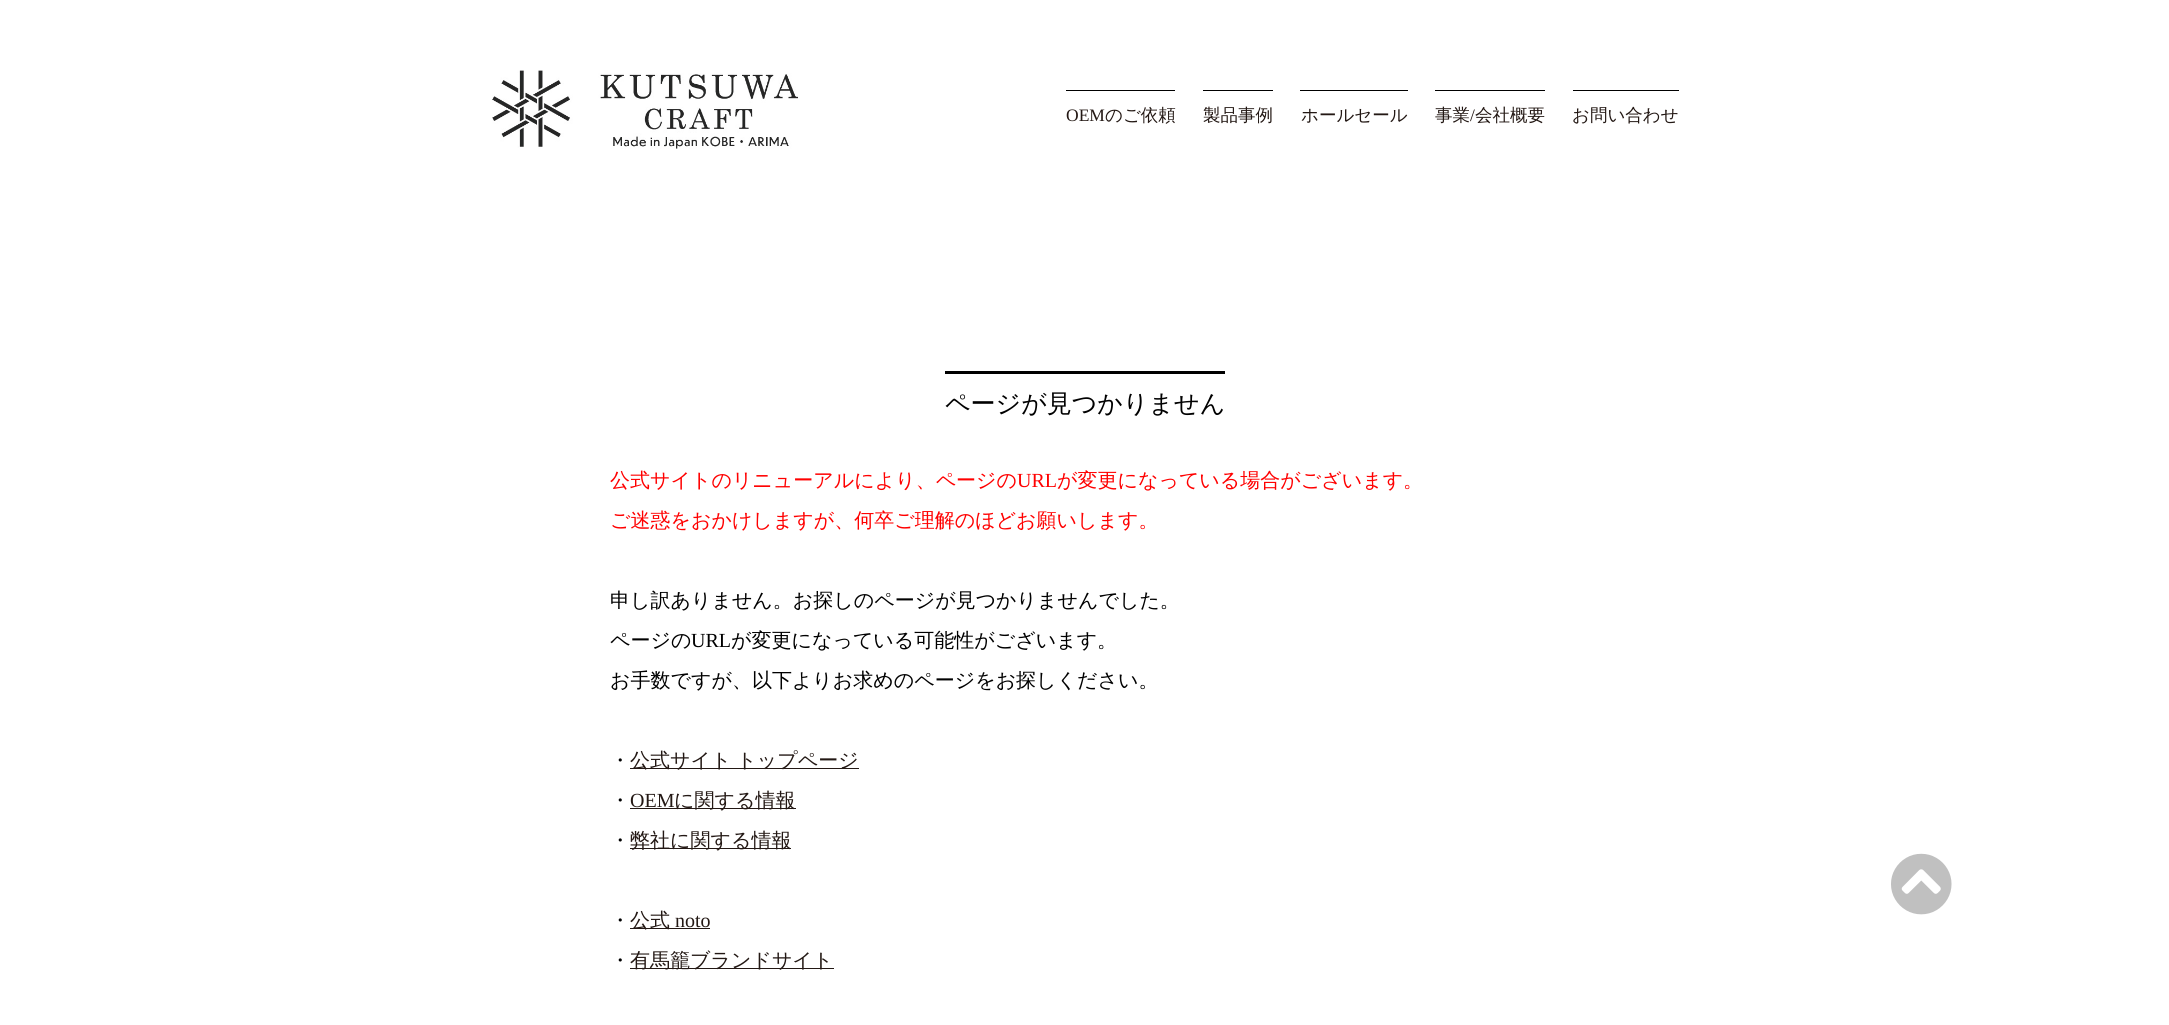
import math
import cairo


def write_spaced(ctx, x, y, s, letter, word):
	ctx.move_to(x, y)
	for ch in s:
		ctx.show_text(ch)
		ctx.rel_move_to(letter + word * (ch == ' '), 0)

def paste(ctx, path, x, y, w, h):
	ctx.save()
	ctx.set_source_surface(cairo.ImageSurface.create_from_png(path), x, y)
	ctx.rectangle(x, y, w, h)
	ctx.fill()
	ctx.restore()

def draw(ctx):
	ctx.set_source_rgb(1, 1, 1)
	ctx.paint()
	paste(ctx, 'media/1.png', 492, 70, 306, 79)
	ctx.set_source_rgb(0, 0, 0)
	ctx.rectangle(1066, 90, 109, 1)
	ctx.fill()
	ctx.select_font_face('Liberation Serif')
	ctx.set_font_size(17.5)
	ctx.set_source_rgb(0.137, 0.094, 0.082)
	ctx.move_to(1066, 121)
	ctx.show_text('OEM')
	ctx.select_font_face('WenQuanYi Zen Hei Medium')
	ctx.move_to(1105, 121)
	ctx.show_text('のご依頼')
	ctx.set_source_rgb(0, 0, 0)
	ctx.rectangle(1203, 90, 70, 1)
	ctx.fill()
	ctx.set_source_rgb(0.137, 0.094, 0.082)
	ctx.move_to(1203, 121)
	ctx.show_text('製品事例')
	ctx.set_source_rgb(0, 0, 0)
	ctx.rectangle(1300, 90, 108, 1)
	ctx.fill()
	ctx.set_source_rgb(0.137, 0.094, 0.082)
	ctx.move_to(1301, 121)
	ctx.show_text('ホールセール')
	ctx.set_source_rgb(0, 0, 0)
	ctx.rectangle(1435, 90, 110, 1)
	ctx.fill()
	ctx.set_source_rgb(0.137, 0.094, 0.082)
	ctx.move_to(1435, 121)
	ctx.show_text('事業')
	ctx.select_font_face('Liberation Serif')
	ctx.move_to(1470, 121)
	ctx.show_text('/')
	ctx.select_font_face('WenQuanYi Zen Hei Medium')
	ctx.move_to(1475, 121)
	ctx.show_text('会社概要')
	ctx.set_source_rgb(0, 0, 0)
	ctx.rectangle(1573, 90, 106, 1)
	ctx.fill()
	ctx.set_source_rgb(0.137, 0.094, 0.082)
	ctx.move_to(1572, 121)
	ctx.show_text('お問い合わせ')
	ctx.set_font_size(25)
	ctx.set_source_rgb(0, 0, 0)
	ctx.move_to(945, 412)
	ctx.show_text('ページが見つかりません')
	ctx.rectangle(945, 371, 280, 3)
	ctx.fill()
	ctx.set_font_size(20)
	ctx.set_source_rgb(1, 0, 0)
	ctx.move_to(610, 487)
	ctx.show_text('公式サイトのリニューアルにより、ページの')
	ctx.select_font_face('Liberation Serif')
	ctx.move_to(1017, 487)
	ctx.show_text('URL')
	ctx.select_font_face('WenQuanYi Zen Hei Medium')
	ctx.move_to(1057, 487)
	ctx.show_text('が変更になっている場合がございます。')
	ctx.move_to(610, 527)
	ctx.show_text('ご迷惑をおかけしますが、何卒ご理解のほどお願いします。')
	ctx.set_source_rgb(0, 0, 0)
	ctx.move_to(610, 607)
	ctx.show_text('申し訳ありません。お探しのページが見つかりませんでした。')
	ctx.move_to(610, 647)
	ctx.show_text('ページの')
	ctx.select_font_face('Liberation Serif')
	ctx.move_to(691, 647)
	ctx.show_text('URL')
	ctx.select_font_face('WenQuanYi Zen Hei Medium')
	for x, y, s in [
		(731, 647, 'が変更になっている可能性がございます。'),
		(610, 687, 'お手数ですが、以下よりお求めのページをお探しください。'),
		(610, 767, '・'),
	]:
		ctx.move_to(x, y)
		ctx.show_text(s)
	ctx.set_source_rgb(0.137, 0.094, 0.082)
	ctx.rectangle(630, 768, 229, 1)
	ctx.fill()
	write_spaced(ctx, 630, 767, '公式サイト トップページ', 0, -1)
	ctx.set_source_rgb(0, 0, 0)
	ctx.move_to(610, 807)
	ctx.show_text('・')
	ctx.select_font_face('Liberation Serif')
	ctx.set_source_rgb(0.137, 0.094, 0.082)
	ctx.move_to(630, 807)
	ctx.show_text('OEM')
	ctx.rectangle(630, 808, 166, 1)
	ctx.fill()
	ctx.select_font_face('WenQuanYi Zen Hei Medium')
	ctx.move_to(674, 807)
	ctx.show_text('に関する情報')
	ctx.set_source_rgb(0, 0, 0)
	ctx.move_to(610, 847)
	ctx.show_text('・')
	ctx.set_source_rgb(0.137, 0.094, 0.082)
	ctx.rectangle(630, 848, 161, 1)
	ctx.fill()
	ctx.move_to(630, 847)
	ctx.show_text('弊社に関する情報')
	ctx.set_source_rgb(0, 0, 0)
	ctx.move_to(610, 927)
	ctx.show_text('・')
	ctx.set_source_rgb(0.137, 0.094, 0.082)
	ctx.rectangle(630, 928, 80, 1)
	ctx.fill()
	ctx.move_to(630, 927)
	ctx.show_text('公式')
	ctx.select_font_face('Liberation Serif')
	ctx.move_to(675, 927)
	ctx.show_text('noto')
	ctx.select_font_face('WenQuanYi Zen Hei Medium')
	ctx.set_source_rgb(0, 0, 0)
	ctx.move_to(610, 967)
	ctx.show_text('・')
	ctx.set_source_rgb(0.137, 0.094, 0.082)
	ctx.rectangle(630, 968, 204, 1)
	ctx.fill()
	ctx.move_to(630, 967)
	ctx.show_text('有馬籠ブランドサイト')
	paste(ctx, 'media/2.png', 1891, 853, 61, 62)


surface = cairo.ImageSurface(cairo.FORMAT_RGB24, 2169, 1025)
ctx = cairo.Context(surface)
options = cairo.FontOptions()
options.set_hint_metrics(cairo.HINT_METRICS_OFF)
options.set_hint_style(cairo.HINT_STYLE_NONE)
ctx.set_font_options(options)
ctx.set_miter_limit(4)
draw(ctx)
surface.write_to_png('image.png')
